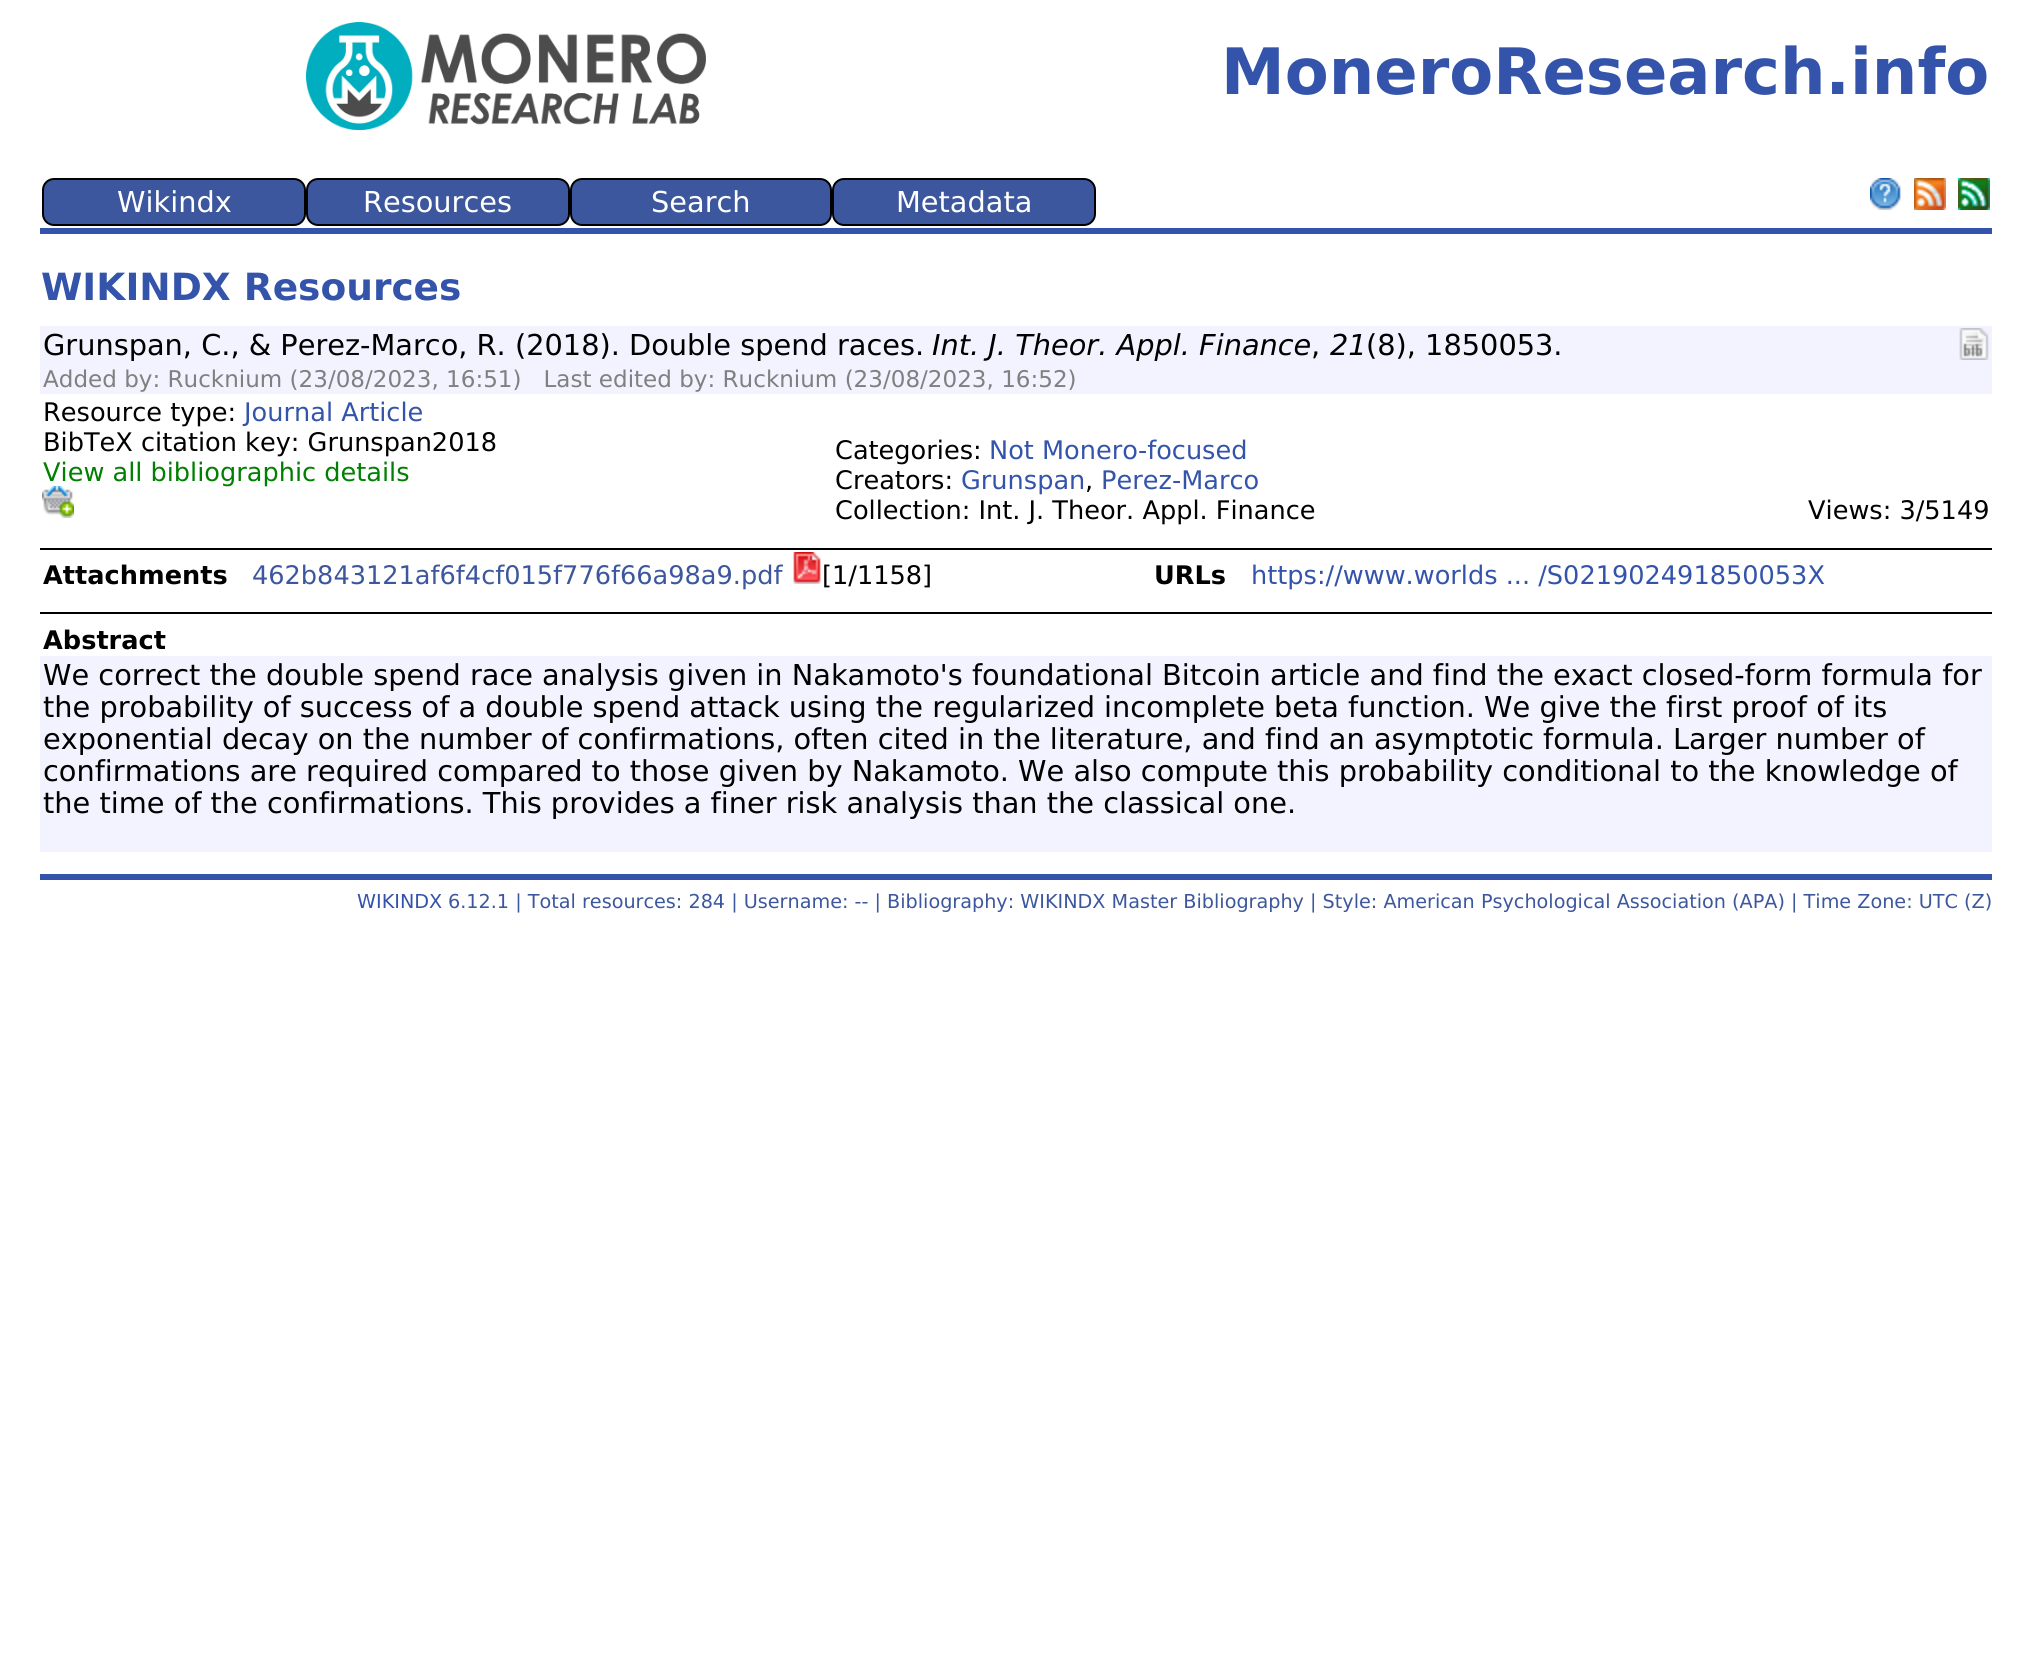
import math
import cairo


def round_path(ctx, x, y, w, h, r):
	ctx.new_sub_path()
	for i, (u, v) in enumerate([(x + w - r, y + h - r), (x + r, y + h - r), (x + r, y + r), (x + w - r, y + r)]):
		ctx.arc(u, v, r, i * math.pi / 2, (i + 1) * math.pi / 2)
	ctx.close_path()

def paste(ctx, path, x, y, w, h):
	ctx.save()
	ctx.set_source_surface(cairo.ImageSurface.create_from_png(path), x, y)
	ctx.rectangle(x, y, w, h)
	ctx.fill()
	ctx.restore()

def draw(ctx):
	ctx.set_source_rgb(1, 1, 1)
	ctx.paint()
	paste(ctx, 'media/1.png', 306, 22, 400, 108)
	ctx.select_font_face('DejaVu Sans', cairo.FONT_SLANT_NORMAL, cairo.FONT_WEIGHT_BOLD)
	ctx.set_font_size(64)
	ctx.set_source_rgb(0.2, 0.329, 0.667)
	ctx.move_to(1221, 94)
	ctx.show_text('MoneroResearch.info')
	ctx.rectangle(40, 228, 1952, 6)
	ctx.fill()
	ctx.set_source_rgb(0.235, 0.341, 0.616)
	round_path(ctx, 43, 179, 262, 46, 11)
	ctx.fill_preserve()
	ctx.set_source_rgb(0, 0, 0)
	ctx.stroke()
	ctx.select_font_face('DejaVu Sans')
	ctx.set_font_size(28.8)
	ctx.set_source_rgb(1, 1, 1)
	ctx.move_to(117, 212)
	ctx.show_text('Wikindx')
	ctx.set_source_rgb(0.235, 0.341, 0.616)
	round_path(ctx, 307, 179, 262, 46, 11)
	ctx.fill_preserve()
	ctx.set_source_rgb(0, 0, 0)
	ctx.stroke()
	ctx.set_source_rgb(1, 1, 1)
	ctx.move_to(363, 212)
	ctx.show_text('Resources')
	ctx.set_source_rgb(0.235, 0.341, 0.616)
	round_path(ctx, 571, 179, 260, 46, 11)
	ctx.fill_preserve()
	ctx.set_source_rgb(0, 0, 0)
	ctx.stroke()
	ctx.set_source_rgb(1, 1, 1)
	ctx.move_to(651, 212)
	ctx.show_text('Search')
	ctx.set_source_rgb(0.235, 0.341, 0.616)
	round_path(ctx, 833, 179, 262, 46, 11)
	ctx.fill_preserve()
	ctx.set_source_rgb(0, 0, 0)
	ctx.stroke()
	ctx.set_source_rgb(1, 1, 1)
	ctx.move_to(896, 212)
	ctx.show_text('Metadata')
	paste(ctx, 'media/2.png', 1870, 178, 31, 32)
	paste(ctx, 'media/3.png', 1914, 178, 32, 32)
	paste(ctx, 'media/4.png', 1958, 178, 32, 32)
	ctx.select_font_face('DejaVu Sans', cairo.FONT_SLANT_NORMAL, cairo.FONT_WEIGHT_BOLD)
	ctx.set_font_size(37.5)
	ctx.set_source_rgb(0.2, 0.329, 0.667)
	ctx.move_to(41, 300)
	ctx.show_text('WIKINDX Resources')
	ctx.set_source_rgb(0.949, 0.953, 1)
	ctx.rectangle(40, 326, 1952, 68)
	ctx.fill()
	ctx.select_font_face('DejaVu Sans')
	ctx.set_font_size(28.8)
	ctx.set_source_rgb(0, 0, 0)
	ctx.move_to(43, 355)
	ctx.show_text('Grunspan, C., & Perez-Marco, R. (2018). Double spend races.')
	ctx.select_font_face('DejaVu Sans', cairo.FONT_SLANT_ITALIC)
	ctx.move_to(932, 355)
	ctx.show_text('Int. J. Theor. Appl. Finance')
	ctx.select_font_face('DejaVu Sans')
	ctx.move_to(1311, 355)
	ctx.show_text(',')
	ctx.select_font_face('DejaVu Sans', cairo.FONT_SLANT_ITALIC)
	ctx.move_to(1330, 355)
	ctx.show_text('21')
	ctx.select_font_face('DejaVu Sans')
	ctx.move_to(1366, 355)
	ctx.show_text('(8), 1850053.')
	ctx.set_font_size(23.05)
	ctx.set_source_rgb(0.502, 0.502, 0.502)
	ctx.move_to(43, 387)
	ctx.show_text('Added by: Rucknium (23/08/2023, 16:51)   Last edited by: Rucknium (23/08/2023, 16:52)')
	paste(ctx, 'media/5.png', 1959, 328, 30, 32)
	ctx.set_font_size(25.6)
	ctx.set_source_rgb(0, 0, 0)
	ctx.move_to(43, 421)
	ctx.show_text('Resource type:')
	ctx.set_source_rgb(0.2, 0.329, 0.667)
	ctx.move_to(244, 421)
	ctx.show_text('Journal Article')
	ctx.set_source_rgb(0, 0, 0)
	ctx.move_to(43, 451)
	ctx.show_text('BibTeX citation key: Grunspan2018')
	ctx.set_source_rgb(0, 0.502, 0)
	ctx.move_to(43, 481)
	ctx.show_text('View all bibliographic details')
	paste(ctx, 'media/6.png', 42, 486, 32, 32)
	ctx.set_source_rgb(0, 0, 0)
	ctx.move_to(835, 459)
	ctx.show_text('Categories:')
	ctx.set_source_rgb(0.2, 0.329, 0.667)
	ctx.move_to(989, 459)
	ctx.show_text('Not Monero-focused')
	ctx.set_source_rgb(0, 0, 0)
	ctx.move_to(835, 489)
	ctx.show_text('Creators:')
	ctx.set_source_rgb(0.2, 0.329, 0.667)
	ctx.move_to(961, 489)
	ctx.show_text('Grunspan')
	ctx.set_source_rgb(0, 0, 0)
	ctx.move_to(1085, 489)
	ctx.show_text(',')
	ctx.set_source_rgb(0.2, 0.329, 0.667)
	ctx.move_to(1101, 489)
	ctx.show_text('Perez-Marco')
	ctx.set_source_rgb(0, 0, 0)
	ctx.move_to(835, 519)
	ctx.show_text('Collection: Int. J. Theor. Appl. Finance')
	ctx.move_to(1808, 519)
	ctx.show_text('Views: 3/5149')
	ctx.rectangle(40, 548, 1952, 2)
	ctx.fill()
	ctx.select_font_face('DejaVu Sans', cairo.FONT_SLANT_NORMAL, cairo.FONT_WEIGHT_BOLD)
	ctx.move_to(43, 584)
	ctx.show_text('Attachments')
	ctx.select_font_face('DejaVu Sans')
	ctx.set_source_rgb(0.235, 0.341, 0.616)
	ctx.move_to(252, 584)
	ctx.show_text('462b843121af6f4cf015f776f66a98a9.pdf')
	paste(ctx, 'media/7.png', 793, 552, 28, 32)
	ctx.set_source_rgb(0, 0, 0)
	ctx.move_to(822, 584)
	ctx.show_text('[1/1158]')
	ctx.select_font_face('DejaVu Sans', cairo.FONT_SLANT_NORMAL, cairo.FONT_WEIGHT_BOLD)
	ctx.move_to(1154, 584)
	ctx.show_text('URLs')
	ctx.select_font_face('DejaVu Sans')
	ctx.set_source_rgb(0.2, 0.329, 0.667)
	ctx.move_to(1251, 584)
	ctx.show_text('https://www.worlds ... /S021902491850053X')
	ctx.set_source_rgb(0, 0, 0)
	ctx.rectangle(40, 612, 1952, 2)
	ctx.fill()
	ctx.select_font_face('DejaVu Sans', cairo.FONT_SLANT_NORMAL, cairo.FONT_WEIGHT_BOLD)
	ctx.move_to(43, 649)
	ctx.show_text('Abstract')
	ctx.set_source_rgb(0.949, 0.953, 1)
	ctx.rectangle(40, 656, 1952, 196)
	ctx.fill()
	ctx.select_font_face('DejaVu Sans')
	ctx.set_font_size(28.8)
	ctx.set_source_rgb(0, 0, 0)
	for x, y, s in [
		(43, 685, 'We correct the double spend race analysis given in Nakamoto\'s foundational Bitcoin article and find the exact closed-form formula for'),
		(43, 717, 'the probability of success of a double spend attack using the regularized incomplete beta function. We give the first proof of its'),
		(43, 749, 'exponential decay on the number of confirmations, often cited in the literature, and find an asymptotic formula. Larger number of'),
		(43, 781, 'confirmations are required compared to those given by Nakamoto. We also compute this probability conditional to the knowledge of'),
		(43, 813, 'the time of the confirmations. This provides a finer risk analysis than the classical one.'),
	]:
		ctx.move_to(x, y)
		ctx.show_text(s)
	ctx.set_source_rgb(0.2, 0.329, 0.667)
	ctx.rectangle(40, 874, 1952, 6)
	ctx.fill()
	ctx.set_font_size(19.2)
	ctx.move_to(357, 908)
	ctx.show_text('WIKINDX')
	ctx.set_source_rgb(0.235, 0.341, 0.616)
	ctx.move_to(448, 908)
	ctx.show_text('6.12.1 | Total resources: 284 | Username: -- | Bibliography: WIKINDX Master Bibliography | Style: American Psychological Association (APA) | Time Zone: UTC (Z)')


surface = cairo.ImageSurface(cairo.FORMAT_RGB24, 2031, 1663)
ctx = cairo.Context(surface)
options = cairo.FontOptions()
options.set_hint_metrics(cairo.HINT_METRICS_OFF)
options.set_hint_style(cairo.HINT_STYLE_NONE)
ctx.set_font_options(options)
ctx.set_miter_limit(4)
draw(ctx)
surface.write_to_png('image.png')
